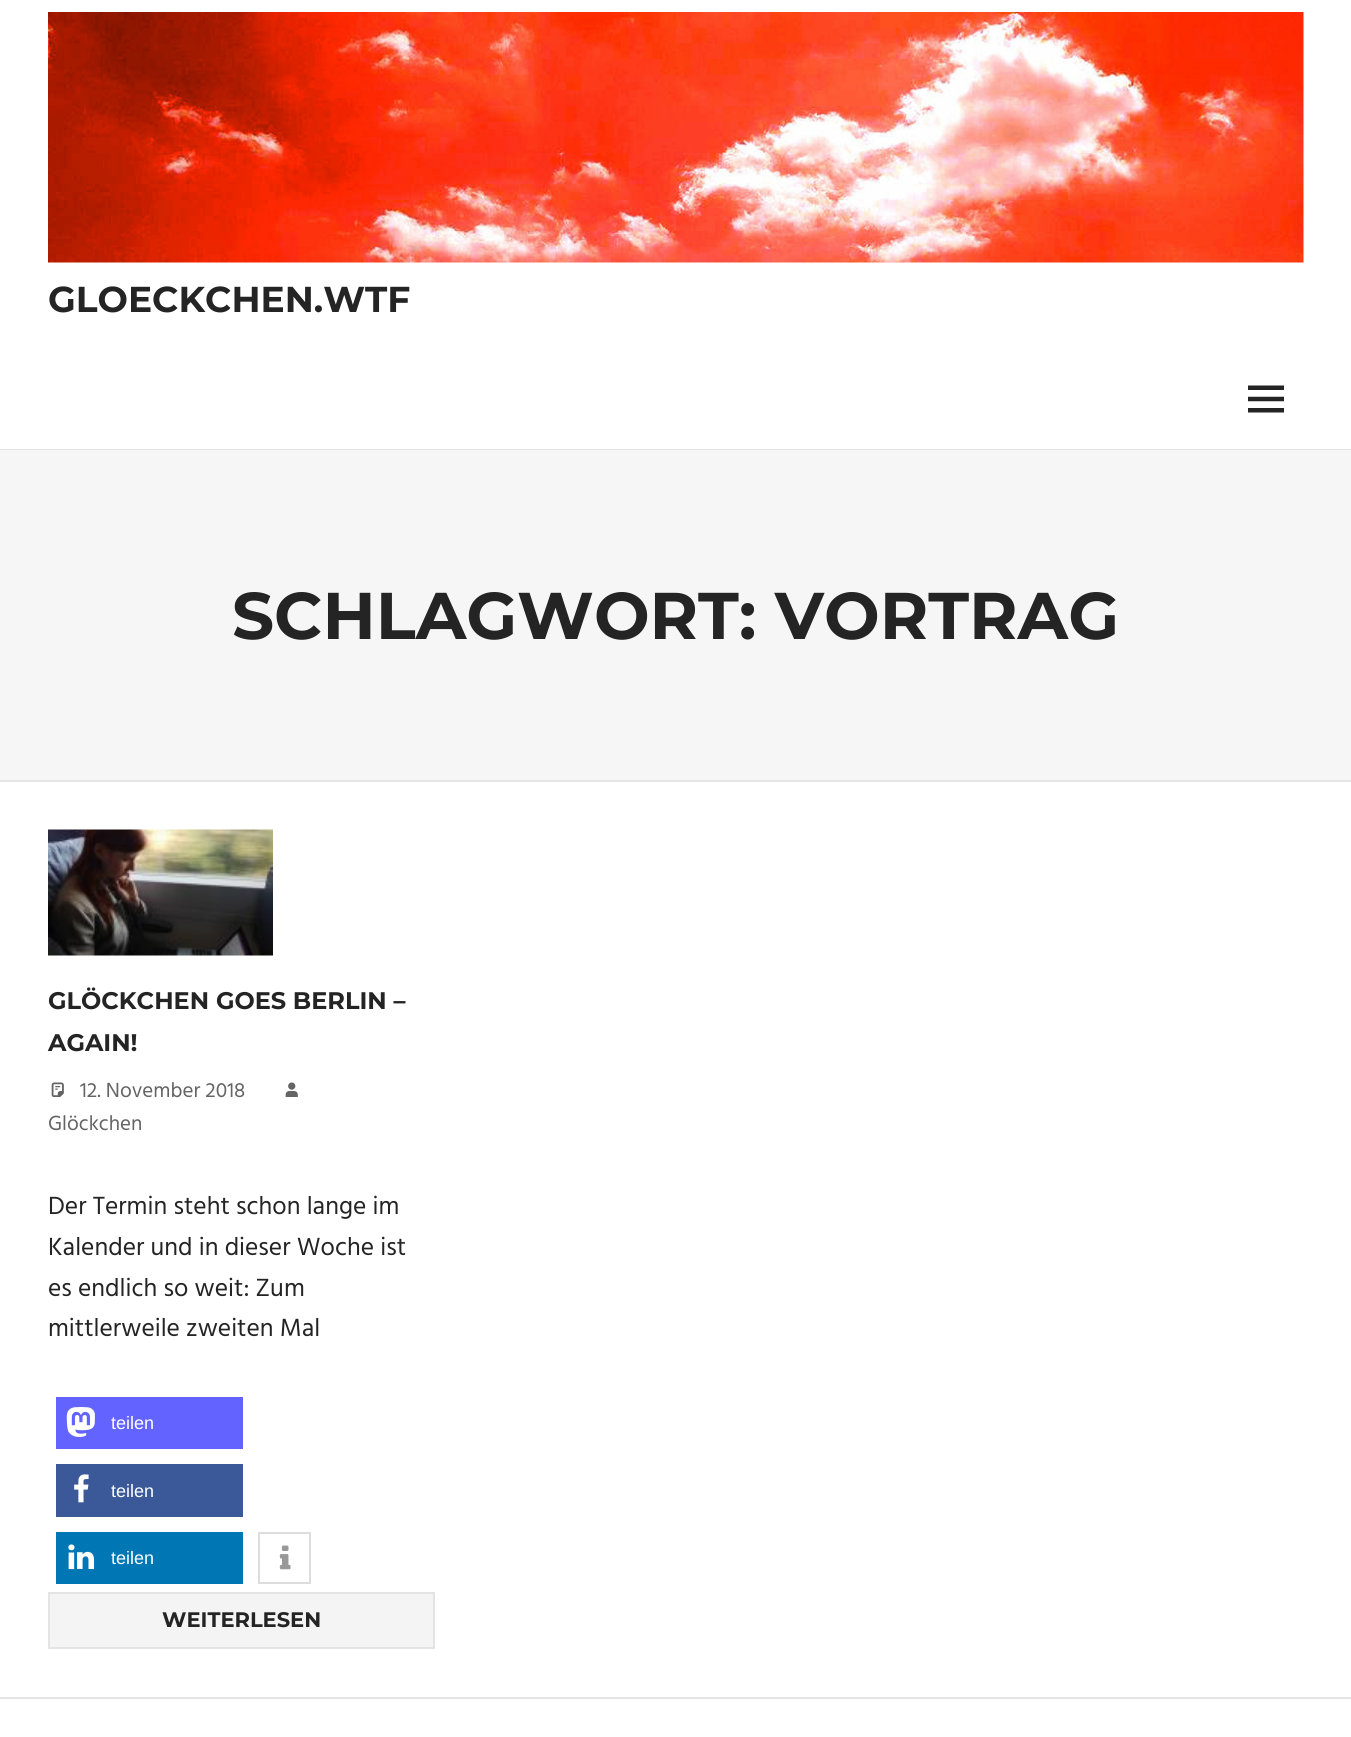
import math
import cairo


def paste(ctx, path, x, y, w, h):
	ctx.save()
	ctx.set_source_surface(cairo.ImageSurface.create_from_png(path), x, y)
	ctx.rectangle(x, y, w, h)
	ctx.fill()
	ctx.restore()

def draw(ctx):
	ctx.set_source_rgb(1, 1, 1)
	ctx.paint()
	ctx.set_source_rgb(0.894, 0.894, 0.894)
	ctx.rectangle(0, 449, 1351, 1)
	ctx.fill()
	paste(ctx, 'media/1.png', 48, 12, 1256, 251)
	ctx.select_font_face('Montserrat', cairo.FONT_SLANT_NORMAL, cairo.FONT_WEIGHT_BOLD)
	ctx.set_font_size(36)
	ctx.set_source_rgb(0.141, 0.141, 0.141)
	ctx.move_to(48, 312)
	ctx.show_text('GLOECKCHEN.WTF')
	paste(ctx, 'media/2.png', 1248, 385, 36, 28)
	ctx.set_source_rgb(0.961, 0.961, 0.961)
	ctx.rectangle(0, 450, 1351, 330)
	ctx.fill()
	ctx.set_source_rgb(0.898, 0.898, 0.898)
	ctx.rectangle(0, 780, 1351, 2)
	ctx.fill()
	ctx.set_font_size(66)
	ctx.set_source_rgb(0.141, 0.141, 0.141)
	ctx.move_to(232, 639)
	ctx.show_text('SCHLAGWORT: VORTRAG')
	paste(ctx, 'media/3.png', 48, 829, 225, 127)
	ctx.set_font_size(24)
	ctx.move_to(48, 1009)
	ctx.show_text('GLÖCKCHEN GOES BERLIN –')
	ctx.move_to(48, 1051)
	ctx.show_text('AGAIN!')
	paste(ctx, 'media/4.png', 51, 1082, 13, 15)
	ctx.select_font_face('Hind')
	ctx.set_font_size(21)
	ctx.set_source_rgb(0.392, 0.392, 0.392)
	ctx.move_to(80, 1097)
	ctx.show_text('12. November 2018')
	paste(ctx, 'media/5.png', 285, 1082, 13, 15)
	ctx.move_to(48, 1130)
	ctx.show_text('Glöckchen')
	ctx.set_font_size(25.5)
	ctx.set_source_rgb(0.141, 0.141, 0.141)
	for x, y, s in [
		(48, 1214, 'Der Termin steht schon lange im'),
		(48, 1255, 'Kalender und in dieser Woche ist'),
		(48, 1296, 'es endlich so weit: Zum'),
		(48, 1336, 'mittlerweile zweiten Mal'),
	]:
		ctx.move_to(x, y)
		ctx.show_text(s)
	ctx.set_source_rgb(0.388, 0.392, 1)
	ctx.rectangle(56, 1397, 187, 52)
	ctx.fill()
	paste(ctx, 'media/6.png', 66, 1407, 29, 30)
	ctx.select_font_face('Liberation Sans')
	ctx.set_font_size(18)
	ctx.set_source_rgb(1, 1, 1)
	ctx.move_to(111, 1429)
	ctx.show_text('teilen')
	ctx.set_source_rgb(0.231, 0.349, 0.596)
	ctx.rectangle(56, 1464, 187, 53)
	ctx.fill()
	paste(ctx, 'media/7.png', 74, 1474, 15, 29)
	ctx.set_source_rgb(1, 1, 1)
	ctx.move_to(111, 1497)
	ctx.show_text('teilen')
	ctx.set_source_rgb(0, 0.467, 0.71)
	ctx.rectangle(56, 1532, 187, 52)
	ctx.fill()
	paste(ctx, 'media/8.png', 68, 1544, 27, 26)
	ctx.set_source_rgb(1, 1, 1)
	ctx.move_to(111, 1564)
	ctx.show_text('teilen')
	ctx.rectangle(259, 1533, 51, 50)
	ctx.set_source_rgb(0.867, 0.867, 0.867)
	ctx.stroke()
	paste(ctx, 'media/9.png', 279, 1545, 12, 25)
	ctx.set_source_rgb(0.957, 0.957, 0.957)
	ctx.rectangle(49, 1593, 385, 55)
	ctx.fill_preserve()
	ctx.set_source_rgb(0.894, 0.894, 0.894)
	ctx.stroke()
	ctx.select_font_face('Montserrat', cairo.FONT_SLANT_NORMAL, cairo.FONT_WEIGHT_BOLD)
	ctx.set_font_size(21)
	ctx.set_source_rgb(0.141, 0.141, 0.141)
	ctx.move_to(162, 1627)
	ctx.show_text('WEITERLESEN')
	ctx.set_source_rgb(0.894, 0.894, 0.894)
	ctx.rectangle(0, 1697, 1351, 2)
	ctx.fill()


surface = cairo.ImageSurface(cairo.FORMAT_RGB24, 1351, 1737)
ctx = cairo.Context(surface)
options = cairo.FontOptions()
options.set_hint_metrics(cairo.HINT_METRICS_OFF)
options.set_hint_style(cairo.HINT_STYLE_NONE)
ctx.set_font_options(options)
ctx.set_miter_limit(4)
draw(ctx)
surface.write_to_png('image.png')
